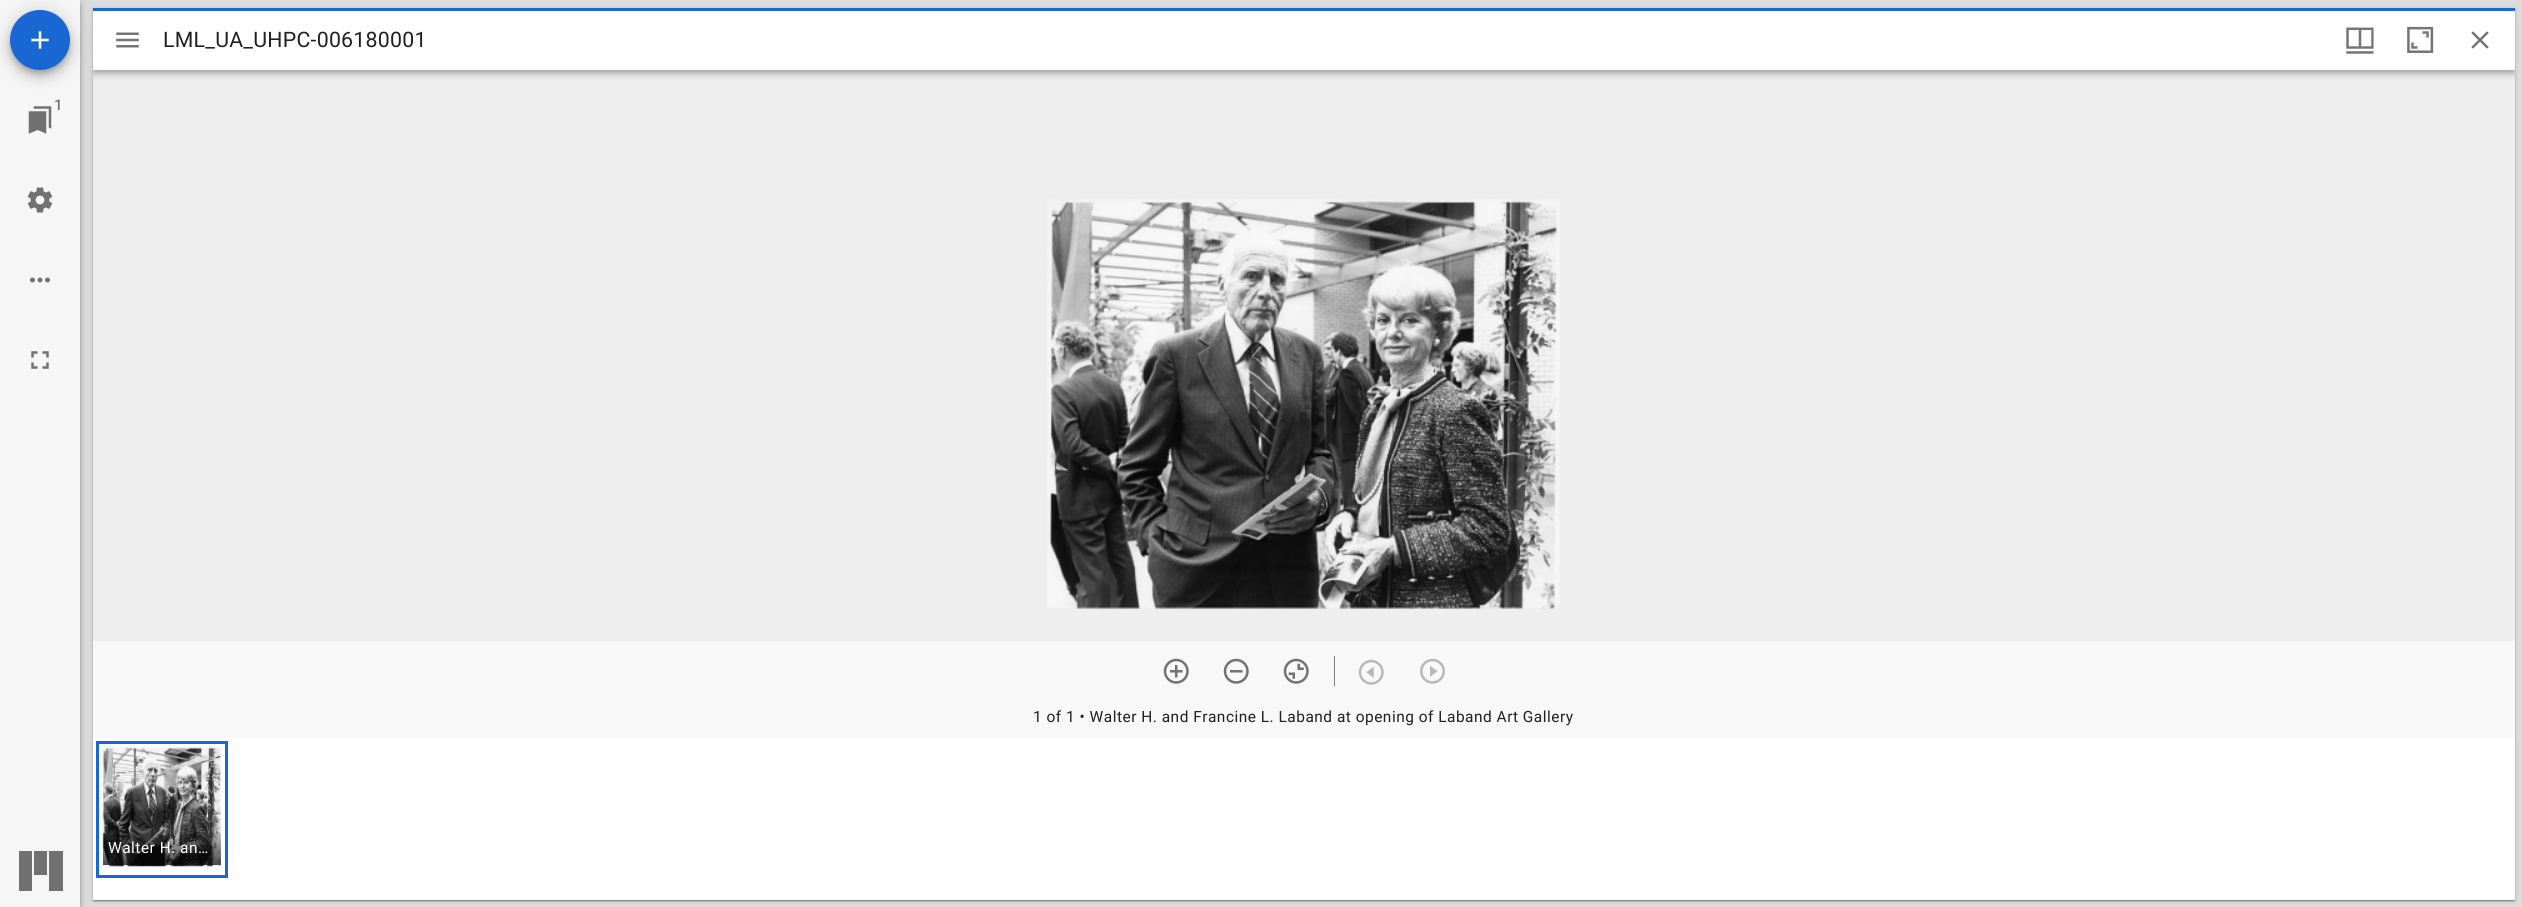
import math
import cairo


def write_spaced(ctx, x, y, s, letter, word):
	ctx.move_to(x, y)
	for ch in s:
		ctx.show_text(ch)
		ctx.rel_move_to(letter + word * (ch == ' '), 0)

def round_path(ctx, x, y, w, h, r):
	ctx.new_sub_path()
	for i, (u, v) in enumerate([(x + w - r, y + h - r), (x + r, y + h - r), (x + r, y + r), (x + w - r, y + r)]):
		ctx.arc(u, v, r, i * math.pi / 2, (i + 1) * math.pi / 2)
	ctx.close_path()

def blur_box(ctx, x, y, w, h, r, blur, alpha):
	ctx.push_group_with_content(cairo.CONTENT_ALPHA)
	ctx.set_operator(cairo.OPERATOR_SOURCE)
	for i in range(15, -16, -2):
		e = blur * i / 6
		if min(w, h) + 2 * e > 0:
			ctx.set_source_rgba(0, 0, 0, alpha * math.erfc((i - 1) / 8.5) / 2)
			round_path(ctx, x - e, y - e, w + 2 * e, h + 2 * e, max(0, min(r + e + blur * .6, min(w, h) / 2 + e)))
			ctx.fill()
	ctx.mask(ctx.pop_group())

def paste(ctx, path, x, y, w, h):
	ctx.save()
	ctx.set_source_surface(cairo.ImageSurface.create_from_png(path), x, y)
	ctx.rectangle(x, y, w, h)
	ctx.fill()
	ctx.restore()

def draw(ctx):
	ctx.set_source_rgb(0.863, 0.863, 0.863)
	ctx.paint()
	ctx.set_source_rgb(0, 0, 0)
	blur_box(ctx, 94, 11, 2420, 890, 0, 0.5, 0.2)
	blur_box(ctx, 93, 9, 2422, 892, 0, 0.5, 0.2)
	blur_box(ctx, 93, 9, 2422, 892, 0, 2, 0.2)
	ctx.set_source_rgb(0.933, 0.933, 0.933)
	ctx.rectangle(93, 70, 2422, 571)
	ctx.fill()
	ctx.save()
	ctx.rectangle(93, 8, 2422, 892)
	ctx.clip()
	ctx.set_source_rgb(0, 0, 0)
	blur_box(ctx, 93, 9, 2422, 62, 0, 6, 0.12)
	blur_box(ctx, 93, 13, 2422, 62, 0, 3, 0.14)
	blur_box(ctx, 94, 11, 2420, 60, 0, 2.5, 0.2)
	ctx.restore()
	ctx.set_source_rgb(1, 1, 1)
	ctx.rectangle(93, 11, 2422, 59)
	ctx.fill()
	ctx.set_source_rgb(0.098, 0.404, 0.824)
	ctx.rectangle(93, 8, 2422, 3)
	ctx.fill()
	ctx.set_source_rgb(0.969, 0.969, 0.969)
	ctx.rectangle(93, 641, 2422, 97)
	ctx.fill()
	ctx.set_source_rgb(1, 1, 1)
	ctx.rectangle(93, 738, 2422, 162)
	ctx.fill()
	ctx.rectangle(97.5, 742.5, 129, 134)
	ctx.set_source_rgb(0.098, 0.404, 0.824)
	ctx.set_line_width(3)
	ctx.stroke()
	ctx.set_source_rgb(0, 0, 0)
	blur_box(ctx, 0, 1, 80, 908, 0, 6, 0.12)
	blur_box(ctx, 0, 5, 80, 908, 0, 3, 0.14)
	blur_box(ctx, 1, 4, 78, 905, 0, 2.5, 0.2)
	ctx.set_source_rgb(0.961, 0.961, 0.961)
	ctx.rectangle(0, 0, 80, 907)
	ctx.fill()
	ctx.set_source_rgb(0, 0, 0)
	blur_box(ctx, 10, 11, 60, 60, 30, 11, 0.12)
	blur_box(ctx, 10, 18, 60, 60, 30, 6, 0.14)
	blur_box(ctx, 11, 15, 58, 58, 29, 3, 0.2)
	ctx.set_source_rgb(0.098, 0.404, 0.824)
	ctx.arc(40, 40, 30, 0, 2 * math.pi)
	ctx.fill()
	paste(ctx, 'media/1.png', 31, 31, 18, 18)
	ctx.select_font_face('Roboto Medium')
	ctx.set_font_size(15)
	ctx.set_source_rgb(0.443, 0.443, 0.443)
	ctx.move_to(54, 110)
	ctx.show_text('1')
	paste(ctx, 'media/2.png', 28, 106, 24, 28)
	paste(ctx, 'media/3.png', 27, 187, 26, 26)
	paste(ctx, 'media/4.png', 30, 277, 20, 6)
	paste(ctx, 'media/5.png', 31, 351, 18, 18)
	ctx.rectangle(19, 851, 13, 40)
	ctx.rectangle(49, 851, 14, 40)
	ctx.rectangle(34, 851, 13, 24)
	ctx.fill()
	paste(ctx, 'media/6.png', 116, 32, 23, 16)
	ctx.select_font_face('Roboto')
	ctx.set_font_size(21.3)
	ctx.set_source_rgb(0.125, 0.125, 0.125)
	write_spaced(ctx, 163, 47, 'LML_UA_UHPC-006180001', 0.25, 0)
	paste(ctx, 'media/7.png', 2346, 27, 28, 27)
	paste(ctx, 'media/8.png', 2407, 26, 27, 27)
	paste(ctx, 'media/9.png', 2471, 31, 18, 18)
	paste(ctx, 'media/10.png', 1047, 199, 513, 410)
	paste(ctx, 'media/11.png', 1163, 658, 26, 26)
	paste(ctx, 'media/12.png', 1223, 658, 26, 26)
	paste(ctx, 'media/13.png', 1283, 658, 26, 26)
	ctx.set_source_rgb(0.502, 0.502, 0.502)
	ctx.rectangle(1334, 656, 1, 30)
	ctx.fill()
	paste(ctx, 'media/14.png', 1358, 659, 26, 26)
	paste(ctx, 'media/15.png', 1420, 658, 25, 26)
	ctx.set_font_size(15.45)
	ctx.set_source_rgb(0.125, 0.125, 0.125)
	write_spaced(ctx, 1033, 722, '1 of 1 • Walter H. and Francine L. Laband at opening of Laband Art Gallery', 0.5, 0)
	paste(ctx, 'media/16.png', 102, 747, 120, 120)
	ctx.set_source_rgb(1, 1, 1)
	write_spaced(ctx, 108, 853, 'Walter H. an…', 0.5, 0)


surface = cairo.ImageSurface(cairo.FORMAT_RGB24, 2522, 907)
ctx = cairo.Context(surface)
options = cairo.FontOptions()
options.set_hint_metrics(cairo.HINT_METRICS_OFF)
options.set_hint_style(cairo.HINT_STYLE_NONE)
ctx.set_font_options(options)
ctx.set_miter_limit(4)
draw(ctx)
surface.write_to_png('image.png')
